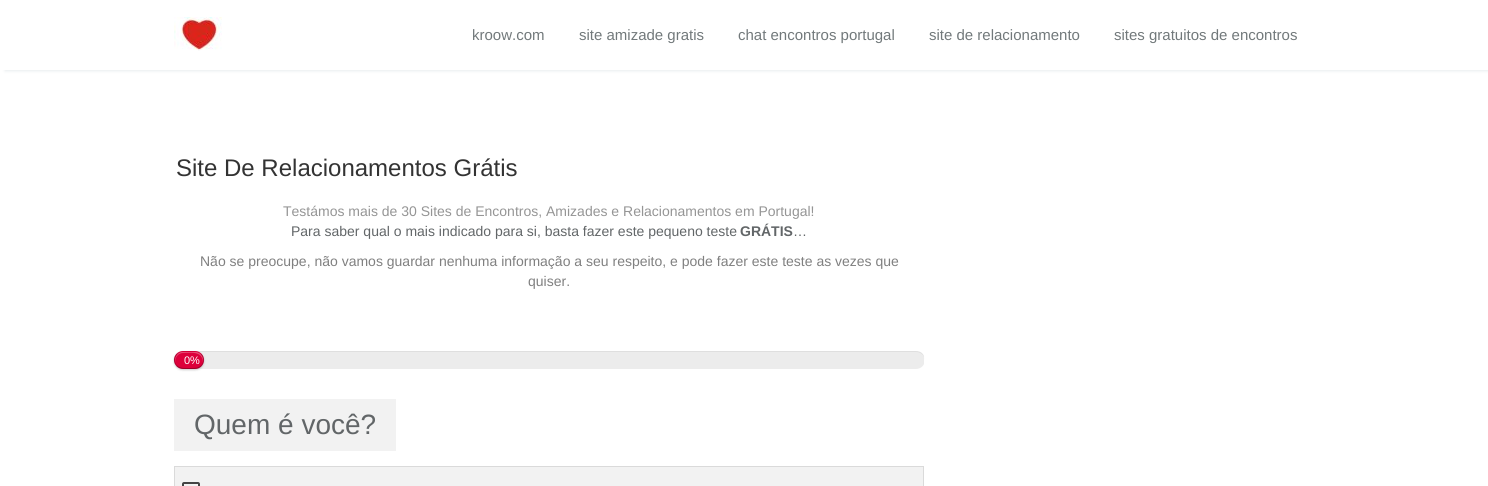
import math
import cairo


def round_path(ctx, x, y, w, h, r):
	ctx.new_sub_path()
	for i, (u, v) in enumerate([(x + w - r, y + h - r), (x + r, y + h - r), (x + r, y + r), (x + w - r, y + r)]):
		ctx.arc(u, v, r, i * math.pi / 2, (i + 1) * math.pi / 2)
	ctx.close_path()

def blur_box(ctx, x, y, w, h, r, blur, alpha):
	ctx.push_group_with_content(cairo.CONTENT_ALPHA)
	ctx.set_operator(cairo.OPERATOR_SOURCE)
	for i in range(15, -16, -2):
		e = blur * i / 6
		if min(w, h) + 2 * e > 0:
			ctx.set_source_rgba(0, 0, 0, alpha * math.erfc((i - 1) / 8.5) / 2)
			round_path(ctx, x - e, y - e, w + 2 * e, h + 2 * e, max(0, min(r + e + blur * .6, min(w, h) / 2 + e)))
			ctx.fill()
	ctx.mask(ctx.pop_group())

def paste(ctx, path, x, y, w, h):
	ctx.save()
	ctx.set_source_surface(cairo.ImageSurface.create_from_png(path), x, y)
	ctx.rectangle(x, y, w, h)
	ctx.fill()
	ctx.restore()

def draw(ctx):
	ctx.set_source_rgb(1, 1, 1)
	ctx.paint()
	ctx.save()
	ctx.rectangle(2, 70, 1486, 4)
	ctx.clip()
	ctx.set_source_rgb(0.91, 0.925, 0.933)
	blur_box(ctx, 5, 1, 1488, 70, 0, 1.5, 1)
	ctx.restore()
	paste(ctx, 'media/1.png', 174, 17, 48, 34)
	ctx.select_font_face('Liberation Sans')
	ctx.set_font_size(15)
	ctx.set_source_rgb(0.447, 0.475, 0.482)
	for x, y, s in [
		(472, 40, 'kroow.com'),
		(579, 40, 'site amizade gratis'),
		(738, 40, 'chat encontros portugal'),
		(929, 40, 'site de relacionamento'),
		(1114, 40, 'sites gratuitos de encontros'),
	]:
		ctx.move_to(x, y)
		ctx.show_text(s)
	ctx.set_font_size(24)
	ctx.set_source_rgb(0.2, 0.2, 0.2)
	ctx.move_to(176, 176)
	ctx.show_text('Site De Relacionamentos Grátis')
	ctx.set_font_size(14)
	ctx.set_source_rgb(0.584, 0.584, 0.584)
	ctx.move_to(283, 216)
	ctx.show_text('Testámos mais de 30 Sites de Encontros, Amizades e Relacionamentos em Portugal!')
	ctx.set_source_rgb(0.384, 0.4, 0.408)
	ctx.move_to(291, 236)
	ctx.show_text('Para saber qual o mais indicado para si, basta fazer este pequeno teste')
	ctx.select_font_face('Liberation Sans', cairo.FONT_SLANT_NORMAL, cairo.FONT_WEIGHT_BOLD)
	ctx.move_to(740, 236)
	ctx.show_text('GRÁTIS')
	ctx.select_font_face('Liberation Sans')
	ctx.move_to(793, 236)
	ctx.show_text('…')
	ctx.set_source_rgb(0.502, 0.502, 0.502)
	ctx.move_to(200, 266)
	ctx.show_text('Não se preocupe, não vamos guardar nenhuma informação a seu respeito, e pode fazer este teste as vezes que')
	ctx.move_to(528, 286)
	ctx.show_text('quiser.')
	ctx.save()
	ctx.rectangle(174, 135, 750, 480)
	ctx.clip()
	ctx.set_source_rgb(0.922, 0.922, 0.922)
	round_path(ctx, 175, 351, 750, 18, 9)
	ctx.fill()
	ctx.restore()
	ctx.set_source_rgba(0.392, 0.392, 0.392, 0.1)
	ctx.new_path()
	ctx.move_to(184, 352)
	ctx.line_to(916, 352)
	ctx.curve_to(921, 352, 925, 356, 925, 360)
	ctx.line_to(924, 356)
	ctx.curve_to(923, 353, 920, 351, 916, 351)
	ctx.line_to(184, 351)
	ctx.line_to(180, 352)
	ctx.curve_to(177, 353, 175, 357, 175, 360)
	ctx.curve_to(175, 356, 179, 352, 184, 352)
	ctx.close_path()
	ctx.fill()
	ctx.set_source_rgb(0, 0, 0)
	blur_box(ctx, 174, 352, 30, 18, 9, 1, 0.2)
	ctx.set_source_rgb(0.867, 0, 0.231)
	round_path(ctx, 174, 351, 30, 18, 9)
	ctx.fill()
	ctx.set_source_rgb(0.906, 0.302, 0.463)
	ctx.new_path()
	ctx.move_to(183, 353)
	ctx.curve_to(189, 353, 199, 351, 202, 358)
	ctx.curve_to(203, 359.5, 203, 361.5, 202.5, 363)
	ctx.curve_to(204.5, 358.5, 201.5, 353, 196.5, 352)
	ctx.line_to(181.5, 352)
	ctx.curve_to(177, 353, 174, 358, 175.5, 362.5)
	ctx.curve_to(174.5, 358, 178, 353, 183, 353)
	ctx.close_path()
	ctx.fill()
	ctx.new_path()
	ctx.move_to(177, 354)
	ctx.curve_to(180, 351, 185, 351.5, 189, 351.5)
	ctx.curve_to(193, 351.5, 198, 351, 201, 354)
	ctx.set_source_rgba(0, 0, 0, 0.05)
	ctx.set_line_width(1)
	ctx.stroke()
	ctx.new_path()
	ctx.move_to(201, 354)
	ctx.curve_to(204.5, 357.5, 204.5, 362.5, 201, 366)
	ctx.set_source_rgba(0, 0, 0, 0.2)
	ctx.stroke()
	ctx.new_path()
	ctx.move_to(201, 366)
	ctx.curve_to(198, 369, 193, 368.5, 189, 368.5)
	ctx.curve_to(185, 368.5, 180, 369, 177, 366)
	ctx.set_source_rgba(0, 0, 0, 0.3)
	ctx.stroke()
	ctx.new_path()
	ctx.move_to(177, 366)
	ctx.curve_to(173.5, 362.5, 173.5, 357.5, 177, 354)
	ctx.set_source_rgba(0, 0, 0, 0.2)
	ctx.stroke()
	ctx.set_font_size(11)
	ctx.set_source_rgb(1, 1, 1)
	ctx.move_to(184, 364)
	ctx.show_text('0%')
	ctx.set_source_rgb(0.949, 0.949, 0.949)
	ctx.rectangle(174, 399, 222, 52)
	ctx.fill()
	ctx.set_font_size(28)
	ctx.set_source_rgb(0.384, 0.4, 0.408)
	ctx.move_to(194, 434)
	ctx.show_text('Quem é você?')
	ctx.set_source_rgb(0.949, 0.949, 0.949)
	ctx.rectangle(174.5, 466.5, 749, 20)
	ctx.fill_preserve()
	ctx.set_source_rgb(0.855, 0.855, 0.855)
	ctx.stroke()
	round_path(ctx, 183, 483, 16, 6, 1)
	ctx.set_source_rgb(0.267, 0.267, 0.267)
	ctx.set_line_width(2)
	ctx.stroke()


surface = cairo.ImageSurface(cairo.FORMAT_RGB24, 1488, 486)
ctx = cairo.Context(surface)
options = cairo.FontOptions()
options.set_hint_metrics(cairo.HINT_METRICS_OFF)
options.set_hint_style(cairo.HINT_STYLE_NONE)
ctx.set_font_options(options)
ctx.set_miter_limit(4)
draw(ctx)
surface.write_to_png('image.png')
